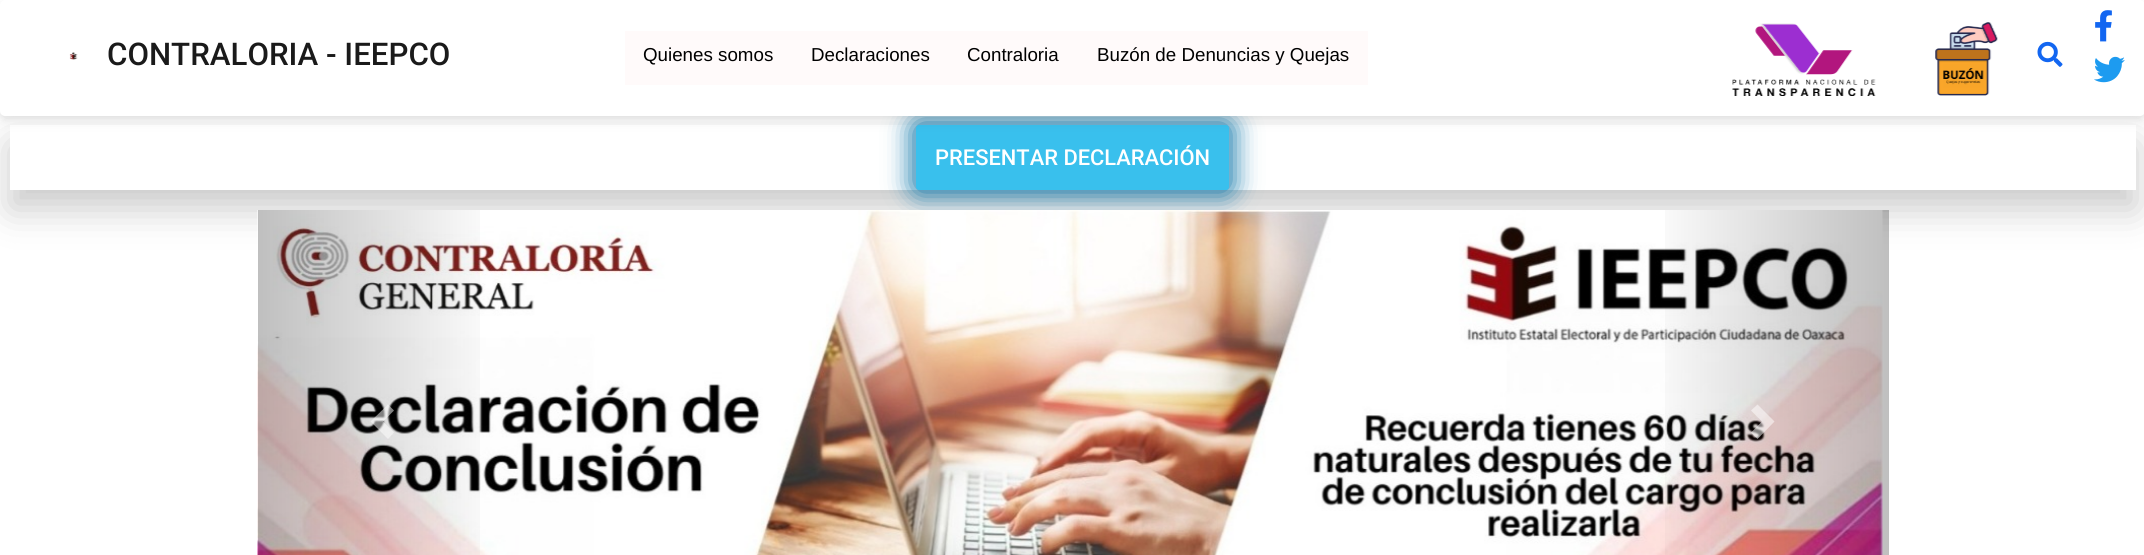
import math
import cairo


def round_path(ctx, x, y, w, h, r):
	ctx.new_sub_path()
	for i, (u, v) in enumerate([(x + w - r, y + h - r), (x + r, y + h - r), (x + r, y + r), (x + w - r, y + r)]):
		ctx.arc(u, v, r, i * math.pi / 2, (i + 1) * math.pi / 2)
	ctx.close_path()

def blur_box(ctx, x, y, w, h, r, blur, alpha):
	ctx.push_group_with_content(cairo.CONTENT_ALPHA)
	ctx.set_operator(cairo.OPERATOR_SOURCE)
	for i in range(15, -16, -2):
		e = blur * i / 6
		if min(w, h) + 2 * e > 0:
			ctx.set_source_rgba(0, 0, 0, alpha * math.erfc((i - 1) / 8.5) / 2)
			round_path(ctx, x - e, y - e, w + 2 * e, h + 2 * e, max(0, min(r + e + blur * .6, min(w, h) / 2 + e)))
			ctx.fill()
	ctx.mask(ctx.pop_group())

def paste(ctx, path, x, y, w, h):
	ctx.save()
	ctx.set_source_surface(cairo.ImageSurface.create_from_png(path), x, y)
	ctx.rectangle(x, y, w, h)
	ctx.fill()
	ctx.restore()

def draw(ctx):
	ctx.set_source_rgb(1, 1, 1)
	ctx.paint()
	ctx.save()
	ctx.set_fill_rule(cairo.FILL_RULE_EVEN_ODD)
	ctx.new_path()
	ctx.move_to(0, 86)
	ctx.line_to(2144, 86)
	ctx.line_to(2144, 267)
	ctx.line_to(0, 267)
	ctx.close_path()
	ctx.move_to(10, 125)
	ctx.line_to(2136, 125)
	ctx.line_to(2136, 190)
	ctx.line_to(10, 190)
	ctx.close_path()
	ctx.clip()
	ctx.set_source_rgb(0, 0, 0)
	blur_box(ctx, 10, 144, 2126, 65, 0, 19, 0.21)
	ctx.restore()
	ctx.set_source_rgb(0.129, 0.506, 0.69)
	blur_box(ctx, 910, 119, 325, 77, 10, 12.5, 1)
	ctx.set_source_rgb(0.224, 0.753, 0.929)
	round_path(ctx, 916, 125, 313, 65, 3)
	ctx.fill()
	ctx.set_source_rgb(0, 0, 0)
	blur_box(ctx, 0, 3, 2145, 116, 5, 2.5, 0.05)
	blur_box(ctx, 0, 5, 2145, 116, 5, 7.5, 0.07)
	ctx.set_source_rgb(1, 1, 1)
	round_path(ctx, 0, 0, 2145, 116, 5)
	ctx.fill()
	paste(ctx, 'media/1.png', 69, 52, 9, 8)
	ctx.select_font_face('Roboto Medium')
	ctx.set_font_size(31.25)
	ctx.set_source_rgb(0.102, 0.102, 0.102)
	ctx.move_to(107, 65)
	ctx.show_text('CONTRALORIA - IEEPCO')
	ctx.set_source_rgb(1, 0.98, 0.98)
	ctx.rectangle(625, 31, 743, 54)
	ctx.fill()
	ctx.select_font_face('Liberation Sans')
	ctx.set_font_size(18.75)
	ctx.set_source_rgb(0, 0, 0)
	for x, y, s in [
		(643, 61, 'Quienes somos'),
		(811, 61, 'Declaraciones'),
		(967, 61, 'Contraloria'),
		(1097, 61, 'Buzón de Denuncias y Quejas'),
	]:
		ctx.move_to(x, y)
		ctx.show_text(s)
	paste(ctx, 'media/2.png', 1732, 23, 144, 73)
	paste(ctx, 'media/3.png', 1935, 22, 63, 74)
	paste(ctx, 'media/4.png', 2037, 41, 26, 26)
	paste(ctx, 'media/5.png', 2095, 10, 17, 32)
	paste(ctx, 'media/6.png', 2094, 56, 31, 27)
	ctx.select_font_face('Roboto Medium')
	ctx.set_font_size(21.9)
	ctx.set_source_rgb(1, 1, 1)
	ctx.move_to(935, 165)
	ctx.show_text('PRESENTAR DECLARACIÓN')
	paste(ctx, 'media/7.png', 257, 210, 1626, 345)
	gradient = cairo.LinearGradient(258, 413, 501, 413)
	gradient.add_color_stop_rgba(0, 0, 0, 0, 0.25)
	gradient.add_color_stop_rgba(1, 0, 0, 0, 0)
	ctx.set_source(gradient)
	ctx.rectangle(258, 210, 222, 345)
	ctx.fill()
	ctx.set_source_rgba(1, 1, 1, 0.5)
	ctx.new_path()
	ctx.move_to(394, 410.5)
	ctx.line_to(383, 421.5)
	ctx.line_to(394, 432.5)
	ctx.line_to(388, 439)
	ctx.line_to(370.5, 421.5)
	ctx.line_to(388, 404.5)
	ctx.close_path()
	ctx.fill()
	gradient = cairo.LinearGradient(1644, 413, 1889, 413)
	gradient.add_color_stop_rgba(0, 0, 0, 0, 0)
	gradient.add_color_stop_rgba(1, 0, 0, 0, 0.25)
	ctx.set_source(gradient)
	ctx.rectangle(1665, 210, 224, 345)
	ctx.fill()
	ctx.set_source_rgba(1, 1, 1, 0.5)
	ctx.new_path()
	ctx.move_to(1774.5, 421.5)
	ctx.line_to(1757.5, 439)
	ctx.line_to(1751, 432.5)
	ctx.line_to(1762, 421.5)
	ctx.line_to(1751, 410.5)
	ctx.line_to(1757.5, 404.5)
	ctx.close_path()
	ctx.fill()


surface = cairo.ImageSurface(cairo.FORMAT_RGB24, 2144, 555)
ctx = cairo.Context(surface)
options = cairo.FontOptions()
options.set_hint_metrics(cairo.HINT_METRICS_OFF)
options.set_hint_style(cairo.HINT_STYLE_NONE)
ctx.set_font_options(options)
ctx.set_miter_limit(4)
draw(ctx)
surface.write_to_png('image.png')
